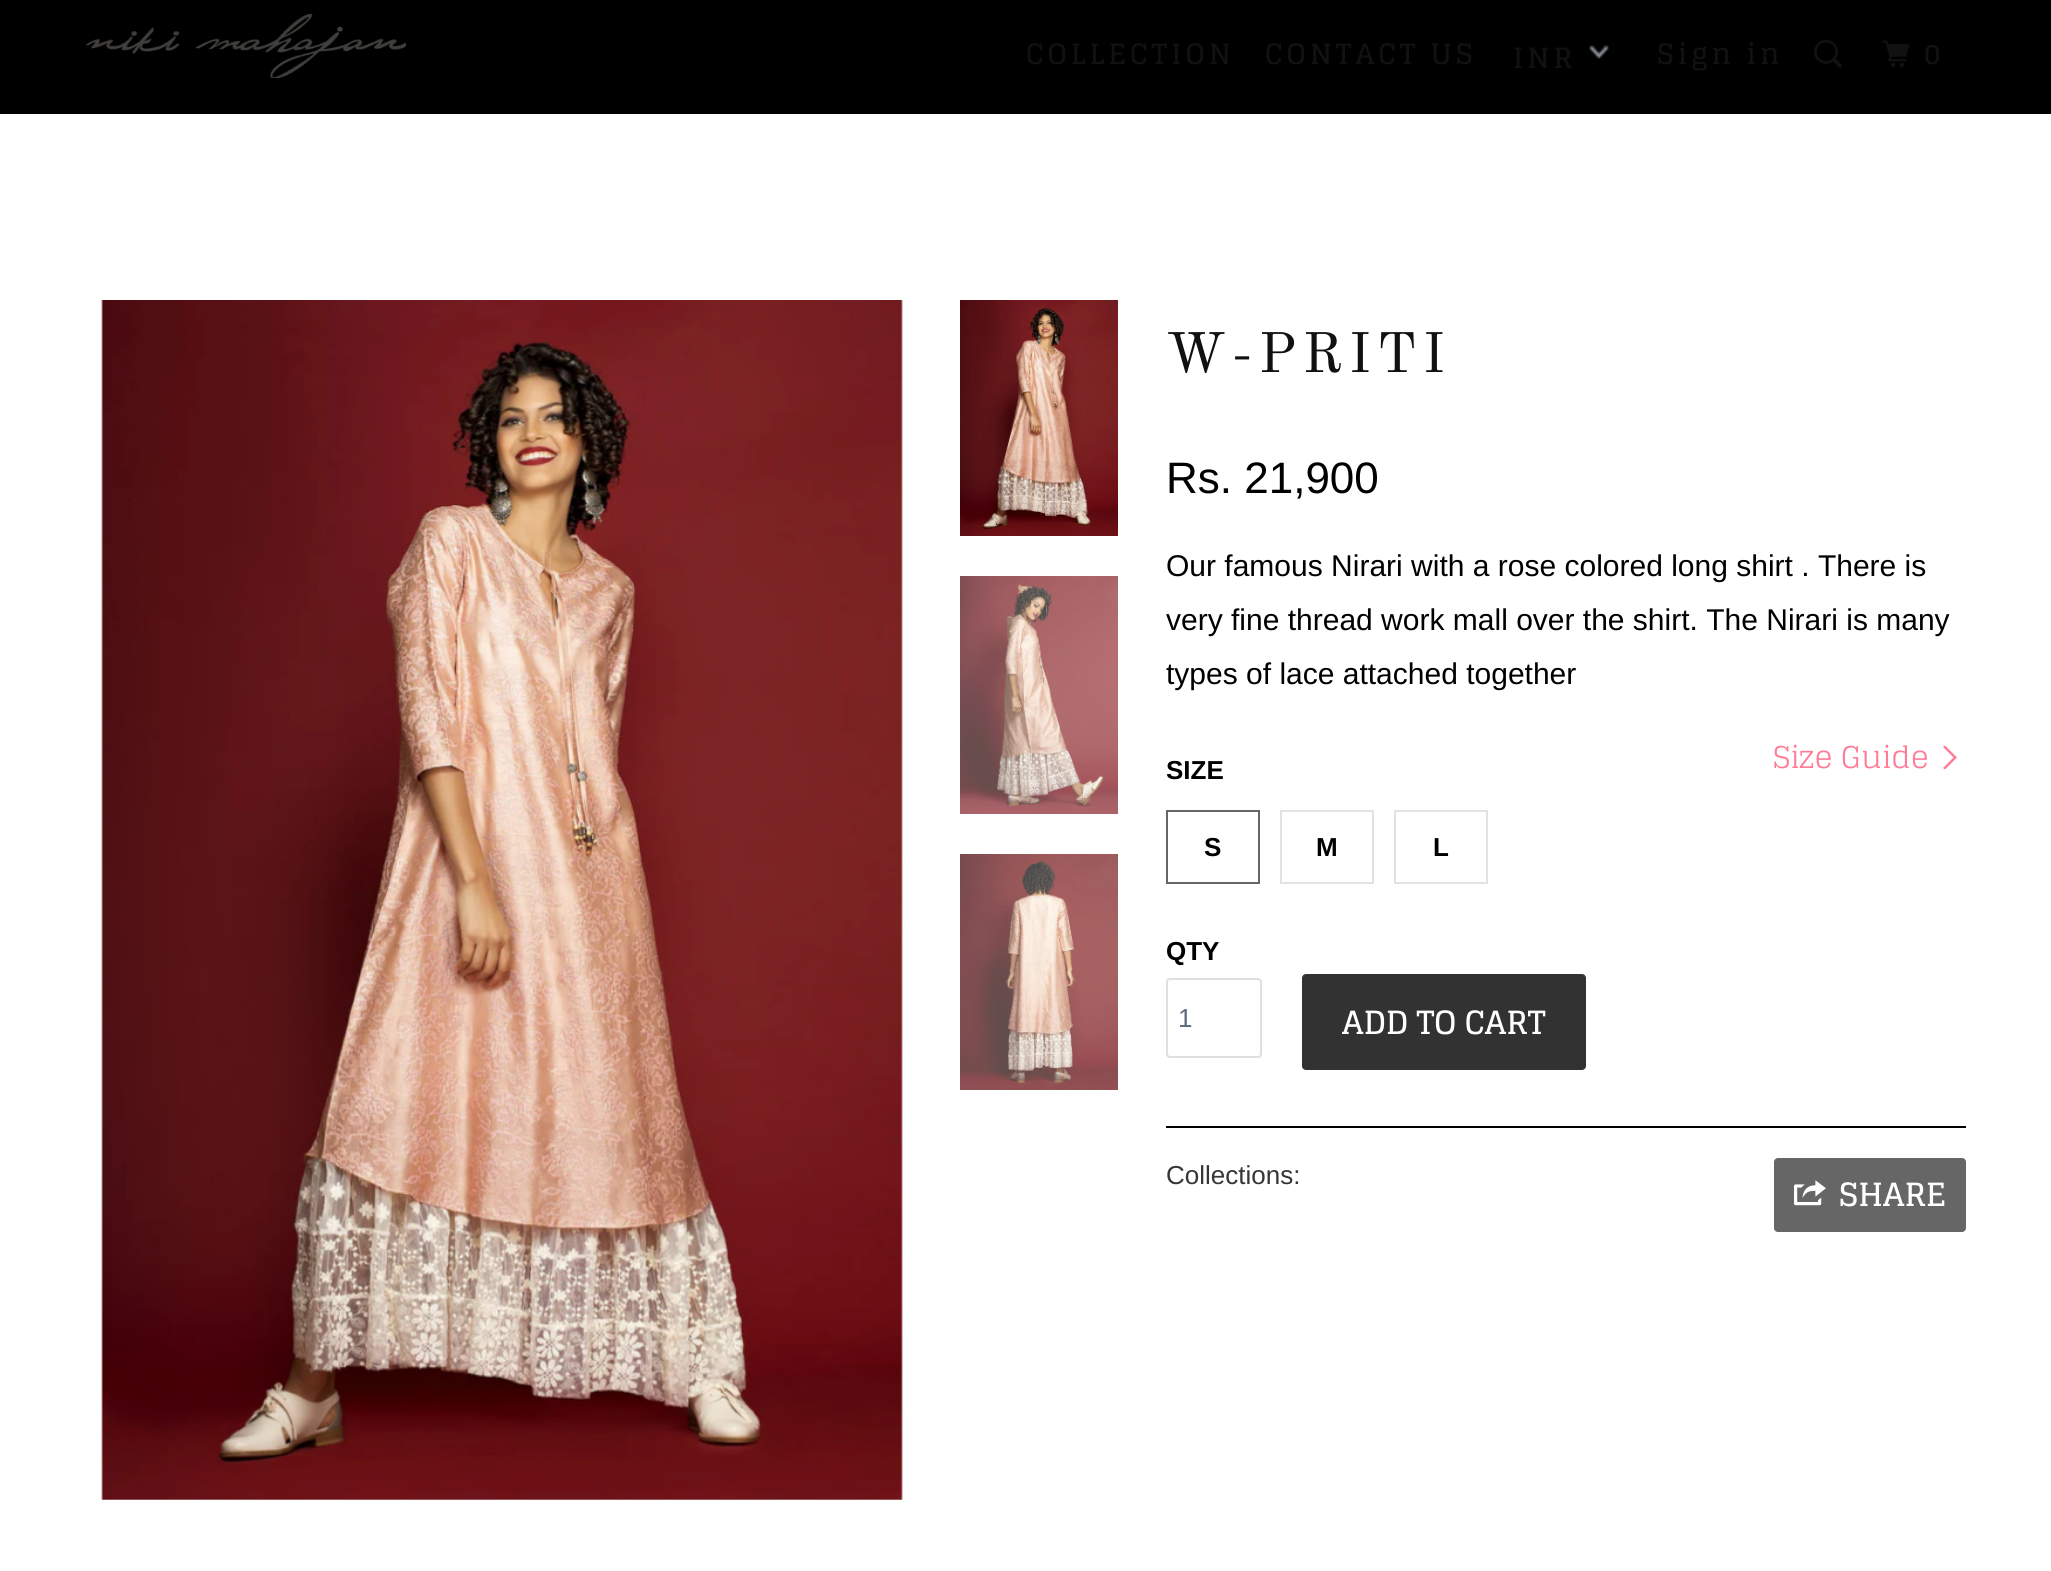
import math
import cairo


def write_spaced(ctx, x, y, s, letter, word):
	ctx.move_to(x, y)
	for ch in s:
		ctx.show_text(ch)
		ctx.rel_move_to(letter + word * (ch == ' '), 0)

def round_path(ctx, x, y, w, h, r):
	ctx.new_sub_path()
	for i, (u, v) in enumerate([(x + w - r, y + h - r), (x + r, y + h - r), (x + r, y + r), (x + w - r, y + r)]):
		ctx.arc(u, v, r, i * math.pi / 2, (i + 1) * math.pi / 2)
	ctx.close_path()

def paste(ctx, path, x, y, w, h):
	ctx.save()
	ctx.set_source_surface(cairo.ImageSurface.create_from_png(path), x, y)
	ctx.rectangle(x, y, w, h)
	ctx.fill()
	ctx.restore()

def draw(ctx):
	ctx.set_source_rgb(1, 1, 1)
	ctx.paint()
	ctx.set_source_rgb(0, 0, 0)
	ctx.rectangle(0, 0, 2051, 114)
	ctx.fill()
	paste(ctx, 'media/1.png', 86, 14, 320, 64)
	ctx.select_font_face('Glegoo', cairo.FONT_SLANT_NORMAL, cairo.FONT_WEIGHT_BOLD)
	ctx.set_font_size(28)
	ctx.set_source_rgb(0.067, 0.067, 0.067)
	write_spaced(ctx, 1026, 64, 'COLLECTION', 4, 0)
	write_spaced(ctx, 1265, 64, 'CONTACT US', 4, 0)
	paste(ctx, 'media/2.png', 1589, 45, 20, 14)
	write_spaced(ctx, 1513, 68, 'INR', 4, 0)
	write_spaced(ctx, 1657, 64, 'Sign in', 4, 0)
	paste(ctx, 'media/3.png', 1814, 40, 28, 28)
	paste(ctx, 'media/4.png', 1882, 40, 28, 27)
	write_spaced(ctx, 1924, 64, '0', 4, 0)
	paste(ctx, 'media/5.png', 101, 300, 802, 1200)
	paste(ctx, 'media/6.png', 960, 300, 158, 236)
	paste(ctx, 'media/7.png', 960, 576, 158, 238)
	paste(ctx, 'media/8.png', 960, 854, 158, 236)
	ctx.select_font_face('Old Standard TT')
	ctx.set_font_size(56)
	write_spaced(ctx, 1166, 372, 'W-PRITI', 6, 0)
	ctx.select_font_face('Liberation Sans')
	ctx.set_font_size(44)
	ctx.set_source_rgb(0, 0, 0)
	ctx.move_to(1166, 493)
	ctx.show_text('Rs. 21,900')
	ctx.set_font_size(30)
	for x, y, s in [
		(1166, 576, 'Our famous Nirari with a rose colored long shirt . There is'),
		(1166, 630, 'very fine thread work mall over the shirt. The Nirari is many'),
		(1166, 684, 'types of lace attached together'),
	]:
		ctx.move_to(x, y)
		ctx.show_text(s)
	ctx.select_font_face('Glegoo')
	ctx.set_source_rgb(1, 0.486, 0.592)
	ctx.move_to(1773, 768)
	ctx.show_text('Size Guide')
	ctx.new_path()
	ctx.move_to(1951, 763.5)
	ctx.line_to(1945, 769.5)
	ctx.line_to(1943, 768)
	ctx.line_to(1953.5, 757.5)
	ctx.line_to(1943, 747)
	ctx.line_to(1945, 745.5)
	ctx.line_to(1957, 757.5)
	ctx.close_path()
	ctx.fill()
	ctx.select_font_face('Liberation Sans', cairo.FONT_SLANT_NORMAL, cairo.FONT_WEIGHT_BOLD)
	ctx.set_font_size(26)
	ctx.set_source_rgb(0, 0, 0)
	ctx.move_to(1166, 779)
	ctx.show_text('SIZE')
	ctx.rectangle(1167, 811, 92, 72)
	ctx.set_source_rgb(0.4, 0.4, 0.4)
	ctx.stroke()
	ctx.set_source_rgb(0, 0, 0)
	ctx.move_to(1204, 856)
	ctx.show_text('S')
	ctx.rectangle(1281, 811, 92, 72)
	ctx.set_source_rgb(0.886, 0.886, 0.886)
	ctx.stroke()
	ctx.set_source_rgb(0, 0, 0)
	ctx.move_to(1316, 856)
	ctx.show_text('M')
	ctx.rectangle(1395, 811, 92, 72)
	ctx.set_source_rgb(0.886, 0.886, 0.886)
	ctx.stroke()
	ctx.set_source_rgb(0, 0, 0)
	ctx.move_to(1433, 856)
	ctx.show_text('L')
	ctx.move_to(1166, 960)
	ctx.show_text('QTY')
	round_path(ctx, 1167, 979, 94, 78, 3)
	ctx.set_source_rgb(0.875, 0.875, 0.875)
	ctx.stroke()
	ctx.select_font_face('Liberation Sans')
	ctx.set_source_rgb(0.373, 0.416, 0.49)
	ctx.move_to(1178, 1027)
	ctx.show_text('1')
	ctx.set_source_rgb(0.196, 0.196, 0.196)
	round_path(ctx, 1302, 974, 284, 96, 4)
	ctx.fill()
	ctx.select_font_face('Glegoo', cairo.FONT_SLANT_NORMAL, cairo.FONT_WEIGHT_BOLD)
	ctx.set_font_size(32)
	ctx.set_source_rgb(1, 1, 1)
	ctx.move_to(1342, 1034)
	ctx.show_text('ADD TO CART')
	ctx.set_source_rgb(0, 0, 0)
	ctx.rectangle(1166, 1126, 800, 2)
	ctx.fill()
	ctx.select_font_face('Liberation Sans')
	ctx.set_font_size(26)
	ctx.set_source_rgb(0.212, 0.212, 0.212)
	ctx.move_to(1166, 1184)
	ctx.show_text('Collections:')
	ctx.set_source_rgb(0.4, 0.4, 0.4)
	round_path(ctx, 1774, 1158, 192, 74, 4)
	ctx.fill()
	paste(ctx, 'media/9.png', 1794, 1180, 32, 26)
	ctx.select_font_face('Glegoo', cairo.FONT_SLANT_NORMAL, cairo.FONT_WEIGHT_BOLD)
	ctx.set_font_size(32)
	ctx.set_source_rgb(1, 1, 1)
	ctx.move_to(1839, 1206)
	ctx.show_text('SHARE')


surface = cairo.ImageSurface(cairo.FORMAT_RGB24, 2051, 1571)
ctx = cairo.Context(surface)
options = cairo.FontOptions()
options.set_hint_metrics(cairo.HINT_METRICS_OFF)
options.set_hint_style(cairo.HINT_STYLE_NONE)
ctx.set_font_options(options)
ctx.set_miter_limit(4)
draw(ctx)
surface.write_to_png('image.png')
